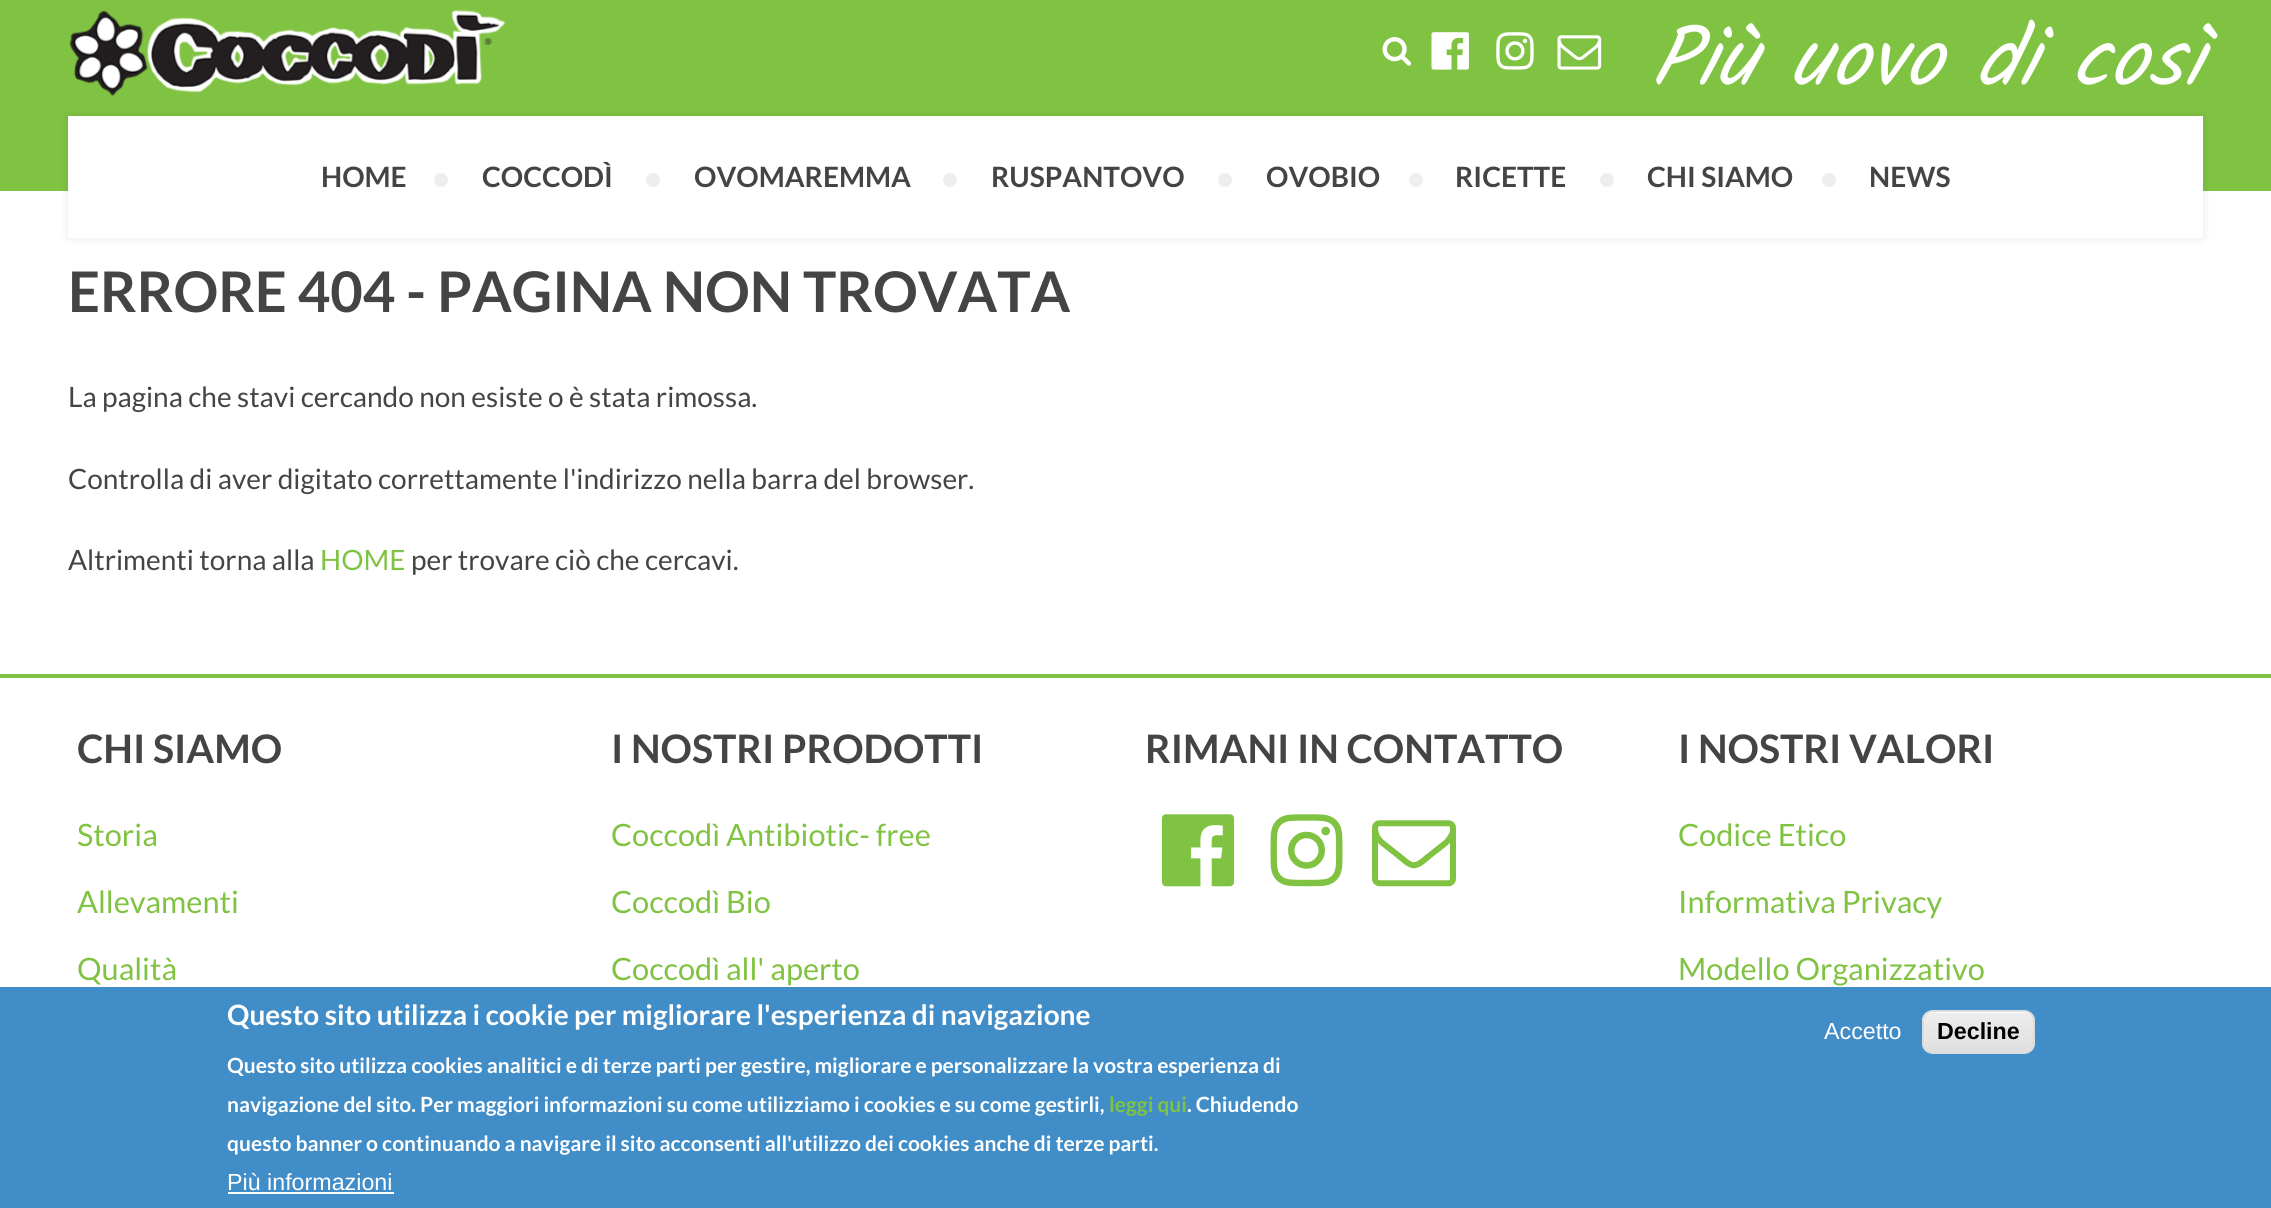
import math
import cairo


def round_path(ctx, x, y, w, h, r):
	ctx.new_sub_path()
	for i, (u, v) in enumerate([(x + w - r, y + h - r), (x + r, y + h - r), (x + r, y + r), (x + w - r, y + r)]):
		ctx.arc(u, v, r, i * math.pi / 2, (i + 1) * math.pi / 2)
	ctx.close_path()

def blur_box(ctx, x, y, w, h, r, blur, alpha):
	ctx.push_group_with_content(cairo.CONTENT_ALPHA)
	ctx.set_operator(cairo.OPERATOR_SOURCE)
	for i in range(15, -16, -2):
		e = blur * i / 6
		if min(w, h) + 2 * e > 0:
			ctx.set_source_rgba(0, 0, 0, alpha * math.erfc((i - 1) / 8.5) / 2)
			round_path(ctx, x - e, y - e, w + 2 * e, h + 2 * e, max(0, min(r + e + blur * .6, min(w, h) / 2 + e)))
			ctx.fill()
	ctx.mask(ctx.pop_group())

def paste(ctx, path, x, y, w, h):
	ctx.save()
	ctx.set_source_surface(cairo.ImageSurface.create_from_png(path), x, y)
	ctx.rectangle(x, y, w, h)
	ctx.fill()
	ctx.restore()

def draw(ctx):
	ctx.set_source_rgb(1, 1, 1)
	ctx.paint()
	ctx.set_source_rgb(0.502, 0.765, 0.259)
	ctx.rectangle(0, 0, 2271, 191)
	ctx.fill()
	paste(ctx, 'media/1.png', 69, 9, 437, 87)
	paste(ctx, 'media/2.png', 1382, 37, 30, 29)
	paste(ctx, 'media/3.png', 1431, 32, 38, 38)
	paste(ctx, 'media/4.png', 1496, 32, 38, 38)
	paste(ctx, 'media/5.png', 1557, 35, 45, 35)
	ctx.select_font_face('Kalam', cairo.FONT_SLANT_ITALIC)
	ctx.set_font_size(84)
	ctx.set_source_rgb(1, 1, 1)
	ctx.move_to(1651, 86)
	ctx.show_text('Più uovo di così')
	ctx.set_source_rgb(0, 0, 0)
	blur_box(ctx, 68, 116, 2135, 122, 0, 4.5, 0.1)
	ctx.set_source_rgb(1, 1, 1)
	ctx.rectangle(68, 116, 2135, 122)
	ctx.fill()
	ctx.select_font_face('Lato', cairo.FONT_SLANT_NORMAL, cairo.FONT_WEIGHT_BOLD)
	ctx.set_font_size(28)
	ctx.set_source_rgb(0.267, 0.267, 0.267)
	ctx.move_to(321, 187)
	ctx.show_text('HOME')
	ctx.set_source_rgb(0.933, 0.933, 0.933)
	ctx.new_path()
	ctx.arc(441, 180, 7, 0, 2 * math.pi)
	ctx.fill()
	ctx.set_source_rgb(0.267, 0.267, 0.267)
	ctx.move_to(482, 187)
	ctx.show_text('COCCODÌ')
	ctx.set_source_rgb(0.933, 0.933, 0.933)
	ctx.new_path()
	ctx.arc(653, 180, 7, 0, 2 * math.pi)
	ctx.fill()
	ctx.set_source_rgb(0.267, 0.267, 0.267)
	ctx.move_to(694, 187)
	ctx.show_text('OVOMAREMMA')
	ctx.set_source_rgb(0.933, 0.933, 0.933)
	ctx.new_path()
	ctx.arc(950, 180, 7, 0, 2 * math.pi)
	ctx.fill()
	ctx.set_source_rgb(0.267, 0.267, 0.267)
	ctx.move_to(991, 187)
	ctx.show_text('RUSPANTOVO')
	ctx.set_source_rgb(0.933, 0.933, 0.933)
	ctx.new_path()
	ctx.arc(1225, 180, 7, 0, 2 * math.pi)
	ctx.fill()
	ctx.set_source_rgb(0.267, 0.267, 0.267)
	ctx.move_to(1266, 187)
	ctx.show_text('OVOBIO')
	ctx.set_source_rgb(0.933, 0.933, 0.933)
	ctx.new_path()
	ctx.arc(1416, 180, 7, 0, 2 * math.pi)
	ctx.fill()
	ctx.set_source_rgb(0.267, 0.267, 0.267)
	ctx.move_to(1455, 187)
	ctx.show_text('RICETTE')
	ctx.set_source_rgb(0.933, 0.933, 0.933)
	ctx.new_path()
	ctx.arc(1607, 180, 7, 0, 2 * math.pi)
	ctx.fill()
	ctx.set_source_rgb(0.267, 0.267, 0.267)
	ctx.move_to(1647, 187)
	ctx.show_text('CHI SIAMO')
	ctx.set_source_rgb(0.933, 0.933, 0.933)
	ctx.new_path()
	ctx.arc(1829, 180, 7, 0, 2 * math.pi)
	ctx.fill()
	ctx.set_source_rgb(0.267, 0.267, 0.267)
	ctx.move_to(1869, 187)
	ctx.show_text('NEWS')
	ctx.set_font_size(56)
	ctx.move_to(68, 312)
	ctx.show_text('ERRORE 404 - PAGINA NON TROVATA')
	ctx.select_font_face('Lato')
	ctx.set_font_size(28)
	for x, y, s in [
		(68, 407, 'La pagina che stavi cercando non esiste o è stata rimossa.'),
		(68, 489, 'Controlla di aver digitato correttamente l\'indirizzo nella barra del browser.'),
		(68, 570, 'Altrimenti torna alla'),
	]:
		ctx.move_to(x, y)
		ctx.show_text(s)
	ctx.set_source_rgb(0.502, 0.765, 0.259)
	ctx.move_to(320, 570)
	ctx.show_text('HOME')
	ctx.set_source_rgb(0.267, 0.267, 0.267)
	ctx.move_to(411, 570)
	ctx.show_text('per trovare ciò che cercavi.')
	ctx.set_source_rgb(0.502, 0.765, 0.259)
	ctx.rectangle(0, 674, 2271, 4)
	ctx.fill()
	ctx.select_font_face('Lato', cairo.FONT_SLANT_NORMAL, cairo.FONT_WEIGHT_BOLD)
	ctx.set_font_size(39.25)
	ctx.set_source_rgb(0.267, 0.267, 0.267)
	ctx.move_to(77, 763)
	ctx.show_text('CHI SIAMO')
	ctx.select_font_face('Lato')
	ctx.set_font_size(30.75)
	ctx.set_source_rgb(0.502, 0.765, 0.259)
	for x, y, s in [
		(77, 846, 'Storia'),
		(77, 913, 'Allevamenti'),
		(77, 980, 'Qualità'),
	]:
		ctx.move_to(x, y)
		ctx.show_text(s)
	ctx.select_font_face('Lato', cairo.FONT_SLANT_NORMAL, cairo.FONT_WEIGHT_BOLD)
	ctx.set_font_size(39.25)
	ctx.set_source_rgb(0.267, 0.267, 0.267)
	ctx.move_to(611, 763)
	ctx.show_text('I NOSTRI PRODOTTI')
	ctx.select_font_face('Lato')
	ctx.set_font_size(30.75)
	ctx.set_source_rgb(0.502, 0.765, 0.259)
	for x, y, s in [
		(611, 846, 'Coccodì Antibiotic- free'),
		(611, 913, 'Coccodì Bio'),
		(611, 980, 'Coccodì all\' aperto'),
	]:
		ctx.move_to(x, y)
		ctx.show_text(s)
	ctx.select_font_face('Lato', cairo.FONT_SLANT_NORMAL, cairo.FONT_WEIGHT_BOLD)
	ctx.set_font_size(39.25)
	ctx.set_source_rgb(0.267, 0.267, 0.267)
	ctx.move_to(1145, 763)
	ctx.show_text('RIMANI IN CONTATTO')
	paste(ctx, 'media/6.png', 1162, 814, 72, 73)
	paste(ctx, 'media/7.png', 1270, 814, 73, 73)
	paste(ctx, 'media/8.png', 1372, 820, 84, 67)
	ctx.move_to(1678, 763)
	ctx.show_text('I NOSTRI VALORI')
	ctx.select_font_face('Lato')
	ctx.set_font_size(30.75)
	ctx.set_source_rgb(0.502, 0.765, 0.259)
	for x, y, s in [
		(1678, 846, 'Codice Etico'),
		(1678, 913, 'Informativa Privacy'),
		(1678, 980, 'Modello Organizzativo'),
	]:
		ctx.move_to(x, y)
		ctx.show_text(s)
	ctx.set_source_rgb(0.255, 0.553, 0.784)
	ctx.rectangle(0, 987, 2271, 221)
	ctx.fill()
	ctx.select_font_face('Lato', cairo.FONT_SLANT_NORMAL, cairo.FONT_WEIGHT_BOLD)
	ctx.set_font_size(28)
	ctx.set_source_rgb(1, 1, 1)
	ctx.move_to(227, 1025)
	ctx.show_text('Questo sito utilizza i cookie per migliorare l\'esperienza di navigazione')
	ctx.set_font_size(21)
	ctx.move_to(227, 1073)
	ctx.show_text('Questo sito utilizza cookies analitici e di terze parti per gestire, migliorare e personalizzare la vostra esperienza di')
	ctx.move_to(227, 1112)
	ctx.show_text('navigazione del sito. Per maggiori informazioni su come utilizziamo i cookies e su come gestirli,')
	ctx.set_source_rgb(0.502, 0.765, 0.259)
	ctx.move_to(1109, 1112)
	ctx.show_text('leggi qui')
	ctx.set_source_rgb(1, 1, 1)
	ctx.move_to(1187, 1112)
	ctx.show_text('. Chiudendo')
	ctx.move_to(227, 1151)
	ctx.show_text('questo banner o continuando a navigare il sito acconsenti all\'utilizzo dei cookies anche di terze parti.')
	ctx.select_font_face('Liberation Sans')
	ctx.set_font_size(23.25)
	ctx.move_to(227, 1190)
	ctx.show_text('Più informazioni')
	ctx.rectangle(228, 1192, 166, 2)
	ctx.fill()
	ctx.move_to(1824, 1039)
	ctx.show_text('Accetto')
	ctx.save()
	round_path(ctx, 1922, 1010, 113, 44, 11)
	ctx.clip()
	gradient = cairo.LinearGradient(1978, 1012, 1978, 1052)
	gradient.add_color_stop_rgba(0.05, 0.929, 0.929, 0.929, 1)
	gradient.add_color_stop_rgba(1, 0.875, 0.875, 0.875, 1)
	ctx.set_source(gradient)
	ctx.rectangle(1922, 1012, 113, 40)
	ctx.fill()
	ctx.restore()
	ctx.new_path()
	ctx.move_to(1932, 1013)
	ctx.line_to(2025, 1013)
	ctx.curve_to(2030, 1013, 2034, 1017, 2034, 1022)
	ctx.curve_to(2034, 1008, 2018, 1012, 2010, 1012)
	ctx.line_to(1948, 1012)
	ctx.curve_to(1939, 1012, 1923, 1008, 1923, 1022)
	ctx.curve_to(1923, 1017, 1927, 1013, 1932, 1013)
	ctx.close_path()
	ctx.fill()
	round_path(ctx, 1923, 1011, 111, 42, 10)
	ctx.set_source_rgb(0.863, 0.863, 0.863)
	ctx.stroke()
	ctx.select_font_face('Liberation Sans', cairo.FONT_SLANT_NORMAL, cairo.FONT_WEIGHT_BOLD)
	ctx.set_source_rgb(0, 0, 0)
	ctx.move_to(1937, 1039)
	ctx.show_text('Decline')


surface = cairo.ImageSurface(cairo.FORMAT_RGB24, 2271, 1208)
ctx = cairo.Context(surface)
options = cairo.FontOptions()
options.set_hint_metrics(cairo.HINT_METRICS_OFF)
options.set_hint_style(cairo.HINT_STYLE_NONE)
ctx.set_font_options(options)
ctx.set_miter_limit(4)
draw(ctx)
surface.write_to_png('image.png')
